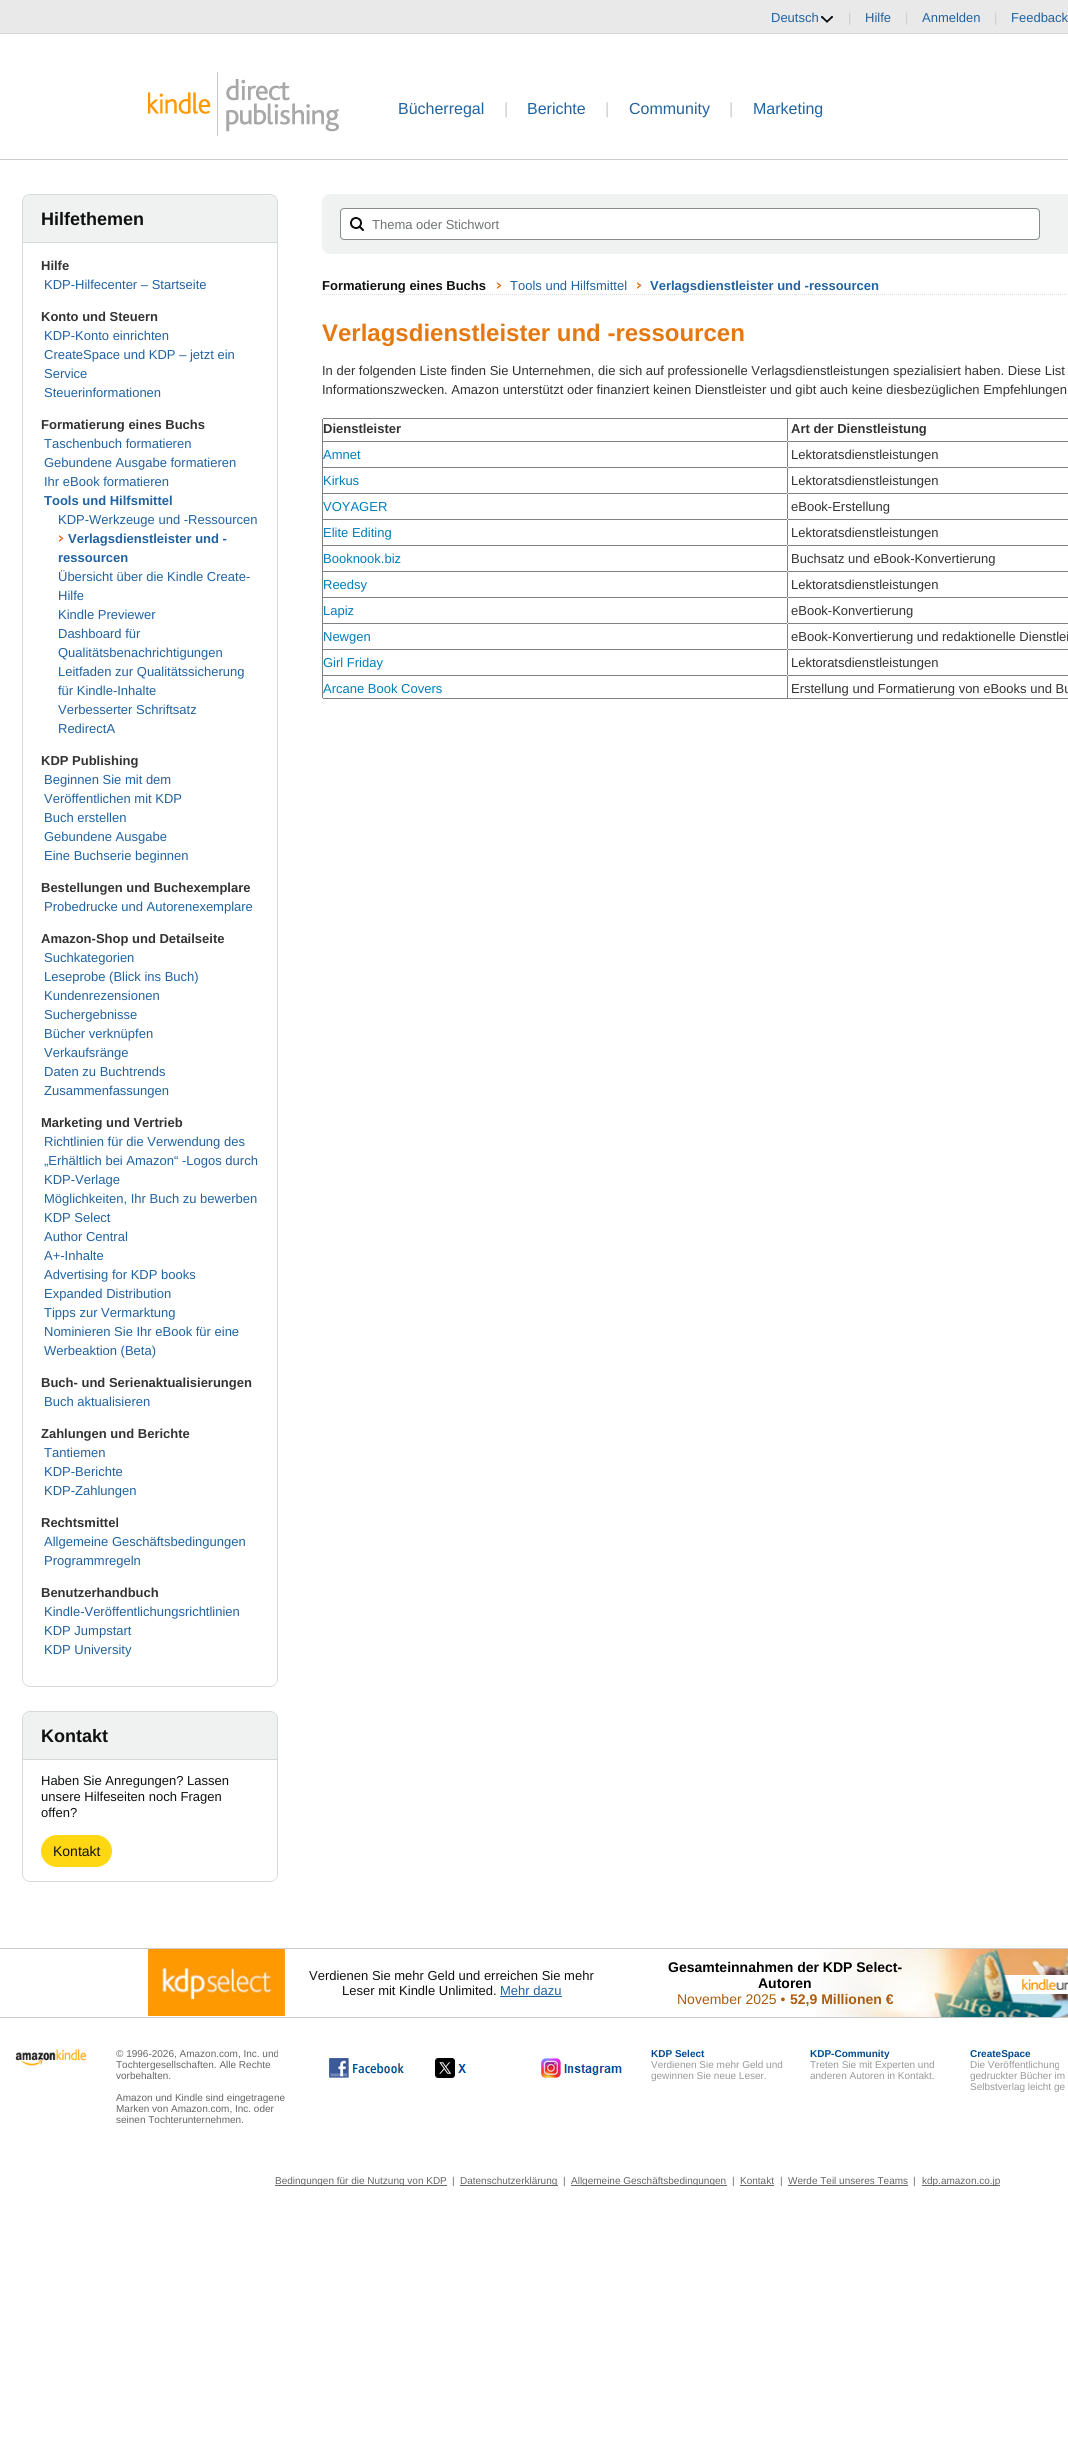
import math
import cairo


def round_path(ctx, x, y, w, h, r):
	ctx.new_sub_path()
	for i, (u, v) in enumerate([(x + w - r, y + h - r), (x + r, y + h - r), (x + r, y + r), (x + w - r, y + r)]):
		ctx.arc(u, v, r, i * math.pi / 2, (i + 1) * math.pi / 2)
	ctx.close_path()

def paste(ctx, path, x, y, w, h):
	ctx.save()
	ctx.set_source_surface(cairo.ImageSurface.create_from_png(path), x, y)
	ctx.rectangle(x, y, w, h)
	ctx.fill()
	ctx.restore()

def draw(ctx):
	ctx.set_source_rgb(1, 1, 1)
	ctx.paint()
	ctx.set_source_rgb(0.914, 0.914, 0.914)
	ctx.rectangle(0, 0, 1068, 33)
	ctx.fill()
	ctx.select_font_face('Liberation Sans')
	ctx.set_font_size(13)
	ctx.set_source_rgb(0.129, 0.384, 0.631)
	ctx.move_to(771, 22)
	ctx.show_text('Deutsch')
	paste(ctx, 'media/1.png', 821, 16, 12, 7)
	ctx.set_source_rgb(0.8, 0.8, 0.8)
	ctx.move_to(848, 22)
	ctx.show_text('|')
	ctx.set_source_rgb(0.129, 0.384, 0.631)
	ctx.move_to(865, 22)
	ctx.show_text('Hilfe')
	ctx.set_source_rgb(0.8, 0.8, 0.8)
	ctx.move_to(905, 22)
	ctx.show_text('|')
	ctx.set_source_rgb(0.129, 0.384, 0.631)
	ctx.move_to(922, 22)
	ctx.show_text('Anmelden')
	ctx.set_source_rgb(0.8, 0.8, 0.8)
	ctx.move_to(994, 22)
	ctx.show_text('|')
	ctx.set_source_rgb(0.129, 0.384, 0.631)
	ctx.move_to(1011, 22)
	ctx.show_text('Feedback')
	ctx.set_source_rgb(0.835, 0.851, 0.851)
	ctx.rectangle(0, 33, 1068, 1)
	ctx.fill()
	ctx.set_source_rgb(0.8, 0.8, 0.8)
	ctx.rectangle(0, 159, 1068, 1)
	ctx.fill()
	paste(ctx, 'media/2.png', 148, 72, 191, 64)
	ctx.set_font_size(16)
	ctx.set_source_rgb(0.129, 0.384, 0.631)
	ctx.move_to(398, 114)
	ctx.show_text('Bücherregal')
	ctx.set_source_rgb(0.8, 0.8, 0.8)
	ctx.move_to(504, 114)
	ctx.show_text('|')
	ctx.set_source_rgb(0.129, 0.384, 0.631)
	ctx.move_to(527, 114)
	ctx.show_text('Berichte')
	ctx.set_source_rgb(0.8, 0.8, 0.8)
	ctx.move_to(605, 114)
	ctx.show_text('|')
	ctx.set_source_rgb(0.129, 0.384, 0.631)
	ctx.move_to(629, 114)
	ctx.show_text('Community')
	ctx.set_source_rgb(0.8, 0.8, 0.8)
	ctx.move_to(729, 114)
	ctx.show_text('|')
	ctx.set_source_rgb(0.129, 0.384, 0.631)
	ctx.move_to(753, 114)
	ctx.show_text('Marketing')
	ctx.set_source_rgb(0.835, 0.851, 0.851)
	ctx.set_fill_rule(cairo.FILL_RULE_EVEN_ODD)
	ctx.new_path()
	ctx.move_to(22, 242)
	ctx.line_to(278, 242)
	ctx.line_to(278, 1679)
	ctx.curve_to(278, 1683, 274, 1687, 270, 1687)
	ctx.line_to(30, 1687)
	ctx.curve_to(26, 1687, 22, 1683, 22, 1679)
	ctx.close_path()
	ctx.move_to(23, 242)
	ctx.line_to(277, 242)
	ctx.line_to(277, 1679)
	ctx.curve_to(277, 1683, 274, 1686, 270, 1686)
	ctx.line_to(30, 1686)
	ctx.curve_to(26, 1686, 23, 1683, 23, 1679)
	ctx.close_path()
	ctx.fill()
	ctx.set_source_rgb(1, 1, 1)
	ctx.new_path()
	ctx.move_to(30, 194.5)
	ctx.line_to(270, 194.5)
	ctx.curve_to(274, 194.5, 277.5, 198, 277.5, 202)
	ctx.line_to(277.5, 242.5)
	ctx.line_to(22.5, 242.5)
	ctx.line_to(22.5, 202)
	ctx.curve_to(22.5, 198, 26, 194.5, 30, 194.5)
	ctx.close_path()
	ctx.fill_preserve()
	ctx.set_source_rgb(0.835, 0.851, 0.851)
	ctx.set_line_width(1)
	ctx.stroke()
	ctx.save()
	ctx.set_fill_rule(cairo.FILL_RULE_WINDING)
	ctx.new_path()
	ctx.move_to(30, 195)
	ctx.line_to(270, 195)
	ctx.curve_to(274, 195, 277, 198, 277, 202)
	ctx.line_to(277, 242)
	ctx.line_to(23, 242)
	ctx.line_to(23, 202)
	ctx.curve_to(23, 198, 26, 195, 30, 195)
	ctx.close_path()
	ctx.clip()
	ctx.set_source_rgb(0.941, 0.949, 0.949)
	ctx.new_path()
	ctx.move_to(31, 195)
	ctx.line_to(269, 195)
	ctx.curve_to(273.5, 195, 277, 198.5, 277, 203)
	ctx.line_to(277, 242)
	ctx.line_to(23, 242)
	ctx.line_to(23, 203)
	ctx.curve_to(23, 198.5, 26.5, 195, 31, 195)
	ctx.close_path()
	ctx.fill()
	ctx.restore()
	ctx.select_font_face('Liberation Sans', cairo.FONT_SLANT_NORMAL, cairo.FONT_WEIGHT_BOLD)
	ctx.set_font_size(18)
	ctx.set_source_rgb(0.059, 0.067, 0.067)
	ctx.move_to(41, 225)
	ctx.show_text('Hilfethemen')
	ctx.set_font_size(13)
	ctx.set_source_rgb(0.2, 0.2, 0.2)
	ctx.move_to(41, 270)
	ctx.show_text('Hilfe')
	ctx.select_font_face('Liberation Sans')
	ctx.set_source_rgb(0.129, 0.384, 0.631)
	ctx.move_to(44, 289)
	ctx.show_text('KDP-Hilfecenter – Startseite')
	ctx.select_font_face('Liberation Sans', cairo.FONT_SLANT_NORMAL, cairo.FONT_WEIGHT_BOLD)
	ctx.set_source_rgb(0.2, 0.2, 0.2)
	ctx.move_to(41, 321)
	ctx.show_text('Konto und Steuern')
	ctx.select_font_face('Liberation Sans')
	ctx.set_source_rgb(0.129, 0.384, 0.631)
	for x, y, s in [
		(44, 340, 'KDP-Konto einrichten'),
		(44, 359, 'CreateSpace und KDP – jetzt ein'),
		(44, 378, 'Service'),
		(44, 397, 'Steuerinformationen'),
	]:
		ctx.move_to(x, y)
		ctx.show_text(s)
	ctx.select_font_face('Liberation Sans', cairo.FONT_SLANT_NORMAL, cairo.FONT_WEIGHT_BOLD)
	ctx.set_source_rgb(0.2, 0.2, 0.2)
	ctx.move_to(41, 429)
	ctx.show_text('Formatierung eines Buchs')
	ctx.select_font_face('Liberation Sans')
	ctx.set_source_rgb(0.129, 0.384, 0.631)
	for x, y, s in [
		(44, 448, 'Taschenbuch formatieren'),
		(44, 467, 'Gebundene Ausgabe formatieren'),
		(44, 486, 'Ihr eBook formatieren'),
	]:
		ctx.move_to(x, y)
		ctx.show_text(s)
	ctx.select_font_face('Liberation Sans', cairo.FONT_SLANT_NORMAL, cairo.FONT_WEIGHT_BOLD)
	ctx.move_to(44, 505)
	ctx.show_text('Tools und Hilfsmittel')
	ctx.select_font_face('Liberation Sans')
	ctx.move_to(58, 524)
	ctx.show_text('KDP-Werkzeuge und -Ressourcen')
	paste(ctx, 'media/3.png', 58, 535, 6, 7)
	ctx.select_font_face('Liberation Sans', cairo.FONT_SLANT_NORMAL, cairo.FONT_WEIGHT_BOLD)
	ctx.move_to(68, 543)
	ctx.show_text('Verlagsdienstleister und -')
	ctx.move_to(58, 562)
	ctx.show_text('ressourcen')
	ctx.select_font_face('Liberation Sans')
	for x, y, s in [
		(58, 581, 'Übersicht über die Kindle Create-'),
		(58, 600, 'Hilfe'),
		(58, 619, 'Kindle Previewer'),
		(58, 638, 'Dashboard für'),
		(58, 657, 'Qualitätsbenachrichtigungen'),
		(58, 676, 'Leitfaden zur Qualitätssicherung'),
		(58, 695, 'für Kindle-Inhalte'),
		(58, 714, 'Verbesserter Schriftsatz'),
		(58, 733, 'RedirectA'),
	]:
		ctx.move_to(x, y)
		ctx.show_text(s)
	ctx.select_font_face('Liberation Sans', cairo.FONT_SLANT_NORMAL, cairo.FONT_WEIGHT_BOLD)
	ctx.set_source_rgb(0.2, 0.2, 0.2)
	ctx.move_to(41, 765)
	ctx.show_text('KDP Publishing')
	ctx.select_font_face('Liberation Sans')
	ctx.set_source_rgb(0.129, 0.384, 0.631)
	for x, y, s in [
		(44, 784, 'Beginnen Sie mit dem'),
		(44, 803, 'Veröffentlichen mit KDP'),
		(44, 822, 'Buch erstellen'),
		(44, 841, 'Gebundene Ausgabe'),
		(44, 860, 'Eine Buchserie beginnen'),
	]:
		ctx.move_to(x, y)
		ctx.show_text(s)
	ctx.select_font_face('Liberation Sans', cairo.FONT_SLANT_NORMAL, cairo.FONT_WEIGHT_BOLD)
	ctx.set_source_rgb(0.2, 0.2, 0.2)
	ctx.move_to(41, 892)
	ctx.show_text('Bestellungen und Buchexemplare')
	ctx.select_font_face('Liberation Sans')
	ctx.set_source_rgb(0.129, 0.384, 0.631)
	ctx.move_to(44, 911)
	ctx.show_text('Probedrucke und Autorenexemplare')
	ctx.select_font_face('Liberation Sans', cairo.FONT_SLANT_NORMAL, cairo.FONT_WEIGHT_BOLD)
	ctx.set_source_rgb(0.2, 0.2, 0.2)
	ctx.move_to(41, 943)
	ctx.show_text('Amazon-Shop und Detailseite')
	ctx.select_font_face('Liberation Sans')
	ctx.set_source_rgb(0.129, 0.384, 0.631)
	for x, y, s in [
		(44, 962, 'Suchkategorien'),
		(44, 981, 'Leseprobe (Blick ins Buch)'),
		(44, 1000, 'Kundenrezensionen'),
		(44, 1019, 'Suchergebnisse'),
		(44, 1038, 'Bücher verknüpfen'),
		(44, 1057, 'Verkaufsränge'),
		(44, 1076, 'Daten zu Buchtrends'),
		(44, 1095, 'Zusammenfassungen'),
	]:
		ctx.move_to(x, y)
		ctx.show_text(s)
	ctx.select_font_face('Liberation Sans', cairo.FONT_SLANT_NORMAL, cairo.FONT_WEIGHT_BOLD)
	ctx.set_source_rgb(0.2, 0.2, 0.2)
	ctx.move_to(41, 1127)
	ctx.show_text('Marketing und Vertrieb')
	ctx.select_font_face('Liberation Sans')
	ctx.set_source_rgb(0.129, 0.384, 0.631)
	for x, y, s in [
		(44, 1146, 'Richtlinien für die Verwendung des'),
		(44, 1165, '„Erhältlich bei Amazon“ -Logos durch'),
		(44, 1184, 'KDP-Verlage'),
		(44, 1203, 'Möglichkeiten, Ihr Buch zu bewerben'),
		(44, 1222, 'KDP Select'),
		(44, 1241, 'Author Central'),
		(44, 1260, 'A+-Inhalte'),
		(44, 1279, 'Advertising for KDP books'),
		(44, 1298, 'Expanded Distribution'),
		(44, 1317, 'Tipps zur Vermarktung'),
		(44, 1336, 'Nominieren Sie Ihr eBook für eine'),
		(44, 1355, 'Werbeaktion (Beta)'),
	]:
		ctx.move_to(x, y)
		ctx.show_text(s)
	ctx.select_font_face('Liberation Sans', cairo.FONT_SLANT_NORMAL, cairo.FONT_WEIGHT_BOLD)
	ctx.set_source_rgb(0.2, 0.2, 0.2)
	ctx.move_to(41, 1387)
	ctx.show_text('Buch- und Serienaktualisierungen')
	ctx.select_font_face('Liberation Sans')
	ctx.set_source_rgb(0.129, 0.384, 0.631)
	ctx.move_to(44, 1406)
	ctx.show_text('Buch aktualisieren')
	ctx.select_font_face('Liberation Sans', cairo.FONT_SLANT_NORMAL, cairo.FONT_WEIGHT_BOLD)
	ctx.set_source_rgb(0.2, 0.2, 0.2)
	ctx.move_to(41, 1438)
	ctx.show_text('Zahlungen und Berichte')
	ctx.select_font_face('Liberation Sans')
	ctx.set_source_rgb(0.129, 0.384, 0.631)
	for x, y, s in [
		(44, 1457, 'Tantiemen'),
		(44, 1476, 'KDP-Berichte'),
		(44, 1495, 'KDP-Zahlungen'),
	]:
		ctx.move_to(x, y)
		ctx.show_text(s)
	ctx.select_font_face('Liberation Sans', cairo.FONT_SLANT_NORMAL, cairo.FONT_WEIGHT_BOLD)
	ctx.set_source_rgb(0.2, 0.2, 0.2)
	ctx.move_to(41, 1527)
	ctx.show_text('Rechtsmittel')
	ctx.select_font_face('Liberation Sans')
	ctx.set_source_rgb(0.129, 0.384, 0.631)
	ctx.move_to(44, 1546)
	ctx.show_text('Allgemeine Geschäftsbedingungen')
	ctx.move_to(44, 1565)
	ctx.show_text('Programmregeln')
	ctx.select_font_face('Liberation Sans', cairo.FONT_SLANT_NORMAL, cairo.FONT_WEIGHT_BOLD)
	ctx.set_source_rgb(0.2, 0.2, 0.2)
	ctx.move_to(41, 1597)
	ctx.show_text('Benutzerhandbuch')
	ctx.select_font_face('Liberation Sans')
	ctx.set_source_rgb(0.129, 0.384, 0.631)
	for x, y, s in [
		(44, 1616, 'Kindle-Veröffentlichungsrichtlinien'),
		(44, 1635, 'KDP Jumpstart'),
		(44, 1654, 'KDP University'),
	]:
		ctx.move_to(x, y)
		ctx.show_text(s)
	ctx.set_source_rgb(0.835, 0.851, 0.851)
	ctx.new_path()
	ctx.move_to(22, 1759)
	ctx.line_to(278, 1759)
	ctx.line_to(278, 1874)
	ctx.curve_to(278, 1878, 274, 1882, 270, 1882)
	ctx.line_to(30, 1882)
	ctx.curve_to(26, 1882, 22, 1878, 22, 1874)
	ctx.close_path()
	ctx.move_to(23, 1759)
	ctx.line_to(277, 1759)
	ctx.line_to(277, 1874)
	ctx.curve_to(277, 1878, 274, 1881, 270, 1881)
	ctx.line_to(30, 1881)
	ctx.curve_to(26, 1881, 23, 1878, 23, 1874)
	ctx.close_path()
	ctx.fill()
	ctx.set_source_rgb(1, 1, 1)
	ctx.new_path()
	ctx.move_to(30, 1711.5)
	ctx.line_to(270, 1711.5)
	ctx.curve_to(274, 1711.5, 277.5, 1715, 277.5, 1719)
	ctx.line_to(277.5, 1759.5)
	ctx.line_to(22.5, 1759.5)
	ctx.line_to(22.5, 1719)
	ctx.curve_to(22.5, 1715, 26, 1711.5, 30, 1711.5)
	ctx.close_path()
	ctx.fill_preserve()
	ctx.set_source_rgb(0.835, 0.851, 0.851)
	ctx.stroke()
	ctx.save()
	ctx.set_fill_rule(cairo.FILL_RULE_WINDING)
	ctx.new_path()
	ctx.move_to(30, 1712)
	ctx.line_to(270, 1712)
	ctx.curve_to(274, 1712, 277, 1715, 277, 1719)
	ctx.line_to(277, 1759)
	ctx.line_to(23, 1759)
	ctx.line_to(23, 1719)
	ctx.curve_to(23, 1715, 26, 1712, 30, 1712)
	ctx.close_path()
	ctx.clip()
	ctx.set_source_rgb(0.941, 0.949, 0.949)
	ctx.new_path()
	ctx.move_to(31, 1712)
	ctx.line_to(269, 1712)
	ctx.curve_to(273.5, 1712, 277, 1715.5, 277, 1720)
	ctx.line_to(277, 1759)
	ctx.line_to(23, 1759)
	ctx.line_to(23, 1720)
	ctx.curve_to(23, 1715.5, 26.5, 1712, 31, 1712)
	ctx.close_path()
	ctx.fill()
	ctx.restore()
	ctx.select_font_face('Liberation Sans', cairo.FONT_SLANT_NORMAL, cairo.FONT_WEIGHT_BOLD)
	ctx.set_font_size(18)
	ctx.set_source_rgb(0.059, 0.067, 0.067)
	ctx.move_to(41, 1742)
	ctx.show_text('Kontakt')
	ctx.select_font_face('Liberation Sans')
	ctx.set_font_size(13)
	for x, y, s in [
		(41, 1785, 'Haben Sie Anregungen? Lassen'),
		(41, 1801, 'unsere Hilfeseiten noch Fragen'),
		(41, 1817, 'offen?'),
	]:
		ctx.move_to(x, y)
		ctx.show_text(s)
	ctx.set_source_rgb(1, 0.847, 0.078)
	round_path(ctx, 41.5, 1835.5, 70, 31, 15.5)
	ctx.fill_preserve()
	ctx.stroke()
	ctx.set_font_size(14)
	ctx.set_source_rgb(0.059, 0.067, 0.067)
	ctx.move_to(53, 1856)
	ctx.show_text('Kontakt')
	ctx.set_source_rgb(0.941, 0.949, 0.949)
	round_path(ctx, 322, 194, 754, 60, 8)
	ctx.fill()
	ctx.set_source_rgb(1, 1, 1)
	round_path(ctx, 340.5, 208.5, 699, 31, 3.5)
	ctx.fill_preserve()
	ctx.set_source_rgb(0.533, 0.549, 0.549)
	ctx.stroke()
	paste(ctx, 'media/4.png', 350, 217, 14, 14)
	ctx.set_font_size(13)
	ctx.set_source_rgb(0.435, 0.451, 0.451)
	ctx.move_to(372, 229)
	ctx.show_text('Thema oder Stichwort')
	ctx.new_path()
	ctx.move_to(322, 294.5)
	ctx.line_to(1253, 294.5)
	ctx.set_source_rgb(0.867, 0.867, 0.867)
	ctx.set_dash([1, 1])
	ctx.stroke()
	ctx.select_font_face('Liberation Sans', cairo.FONT_SLANT_NORMAL, cairo.FONT_WEIGHT_BOLD)
	ctx.set_source_rgb(0.059, 0.067, 0.067)
	ctx.move_to(322, 290)
	ctx.show_text('Formatierung eines Buchs')
	paste(ctx, 'media/3.png', 496, 282, 6, 7)
	ctx.select_font_face('Liberation Sans')
	ctx.set_source_rgb(0.129, 0.384, 0.631)
	ctx.move_to(510, 290)
	ctx.show_text('Tools und Hilfsmittel')
	paste(ctx, 'media/3.png', 636, 282, 6, 7)
	ctx.select_font_face('Liberation Sans', cairo.FONT_SLANT_NORMAL, cairo.FONT_WEIGHT_BOLD)
	ctx.move_to(650, 290)
	ctx.show_text('Verlagsdienstleister und -ressourcen')
	ctx.set_font_size(24)
	ctx.set_source_rgb(0.894, 0.475, 0.067)
	ctx.move_to(322, 341)
	ctx.show_text('Verlagsdienstleister und -ressourcen')
	ctx.select_font_face('Liberation Sans')
	ctx.set_font_size(13)
	ctx.set_source_rgb(0.2, 0.2, 0.2)
	ctx.move_to(322, 375)
	ctx.show_text('In der folgenden Liste finden Sie Unternehmen, die sich auf professionelle Verlagsdienstleistungen spezialisiert haben. Diese List')
	ctx.move_to(322, 394)
	ctx.show_text('Informationszwecken. Amazon unterstützt oder finanziert keinen Dienstleister und gibt auch keine diesbezüglichen Empfehlungen')
	ctx.set_source_rgb(0.502, 0.502, 0.502)
	ctx.rectangle(322, 418, 746, 1)
	ctx.rectangle(322, 698, 746, 1)
	ctx.rectangle(322, 418, 1, 281)
	ctx.fill()
	ctx.select_font_face('Liberation Sans', cairo.FONT_SLANT_NORMAL, cairo.FONT_WEIGHT_BOLD)
	ctx.set_source_rgb(0.2, 0.2, 0.2)
	ctx.move_to(323, 433)
	ctx.show_text('Dienstleister')
	ctx.set_source_rgb(0.502, 0.502, 0.502)
	ctx.rectangle(787, 441, 281, 1)
	ctx.rectangle(787, 467, 281, 1)
	ctx.rectangle(787, 493, 281, 1)
	ctx.rectangle(787, 519, 281, 1)
	ctx.rectangle(787, 545, 281, 1)
	ctx.rectangle(787, 571, 281, 1)
	ctx.rectangle(787, 597, 281, 1)
	ctx.rectangle(787, 623, 281, 1)
	ctx.rectangle(787, 649, 281, 1)
	ctx.rectangle(787, 675, 281, 1)
	ctx.rectangle(787, 675, 1, 24)
	ctx.rectangle(322, 675, 466, 1)
	ctx.rectangle(787, 649, 1, 27)
	ctx.rectangle(322, 649, 466, 1)
	ctx.rectangle(787, 623, 1, 27)
	ctx.rectangle(322, 623, 466, 1)
	ctx.rectangle(787, 597, 1, 27)
	ctx.rectangle(322, 597, 466, 1)
	ctx.rectangle(787, 571, 1, 27)
	ctx.rectangle(322, 571, 466, 1)
	ctx.rectangle(787, 545, 1, 27)
	ctx.rectangle(322, 545, 466, 1)
	ctx.rectangle(787, 519, 1, 27)
	ctx.rectangle(322, 519, 466, 1)
	ctx.rectangle(787, 493, 1, 27)
	ctx.rectangle(322, 493, 466, 1)
	ctx.rectangle(787, 467, 1, 27)
	ctx.rectangle(322, 467, 466, 1)
	ctx.rectangle(787, 441, 1, 27)
	ctx.rectangle(322, 441, 466, 1)
	ctx.rectangle(787, 418, 1, 24)
	ctx.fill()
	ctx.set_source_rgb(0.2, 0.2, 0.2)
	ctx.move_to(791, 433)
	ctx.show_text('Art der Dienstleistung')
	ctx.select_font_face('Liberation Sans')
	ctx.set_source_rgb(0, 0.494, 0.725)
	ctx.move_to(323, 459)
	ctx.show_text('Amnet')
	ctx.set_source_rgb(0.2, 0.2, 0.2)
	ctx.move_to(791, 459)
	ctx.show_text('Lektoratsdienstleistungen')
	ctx.set_source_rgb(0, 0.494, 0.725)
	ctx.move_to(323, 485)
	ctx.show_text('Kirkus')
	ctx.set_source_rgb(0.2, 0.2, 0.2)
	ctx.move_to(791, 485)
	ctx.show_text('Lektoratsdienstleistungen')
	ctx.set_source_rgb(0, 0.494, 0.725)
	ctx.move_to(323, 511)
	ctx.show_text('VOYAGER')
	ctx.set_source_rgb(0.2, 0.2, 0.2)
	ctx.move_to(791, 511)
	ctx.show_text('eBook-Erstellung')
	ctx.set_source_rgb(0, 0.494, 0.725)
	ctx.move_to(323, 537)
	ctx.show_text('Elite Editing')
	ctx.set_source_rgb(0.2, 0.2, 0.2)
	ctx.move_to(791, 537)
	ctx.show_text('Lektoratsdienstleistungen')
	ctx.set_source_rgb(0, 0.494, 0.725)
	ctx.move_to(323, 563)
	ctx.show_text('Booknook.biz')
	ctx.set_source_rgb(0.2, 0.2, 0.2)
	ctx.move_to(791, 563)
	ctx.show_text('Buchsatz und eBook-Konvertierung')
	ctx.set_source_rgb(0, 0.494, 0.725)
	ctx.move_to(323, 589)
	ctx.show_text('Reedsy')
	ctx.set_source_rgb(0.2, 0.2, 0.2)
	ctx.move_to(791, 589)
	ctx.show_text('Lektoratsdienstleistungen')
	ctx.set_source_rgb(0, 0.494, 0.725)
	ctx.move_to(323, 615)
	ctx.show_text('Lapiz')
	ctx.set_source_rgb(0.2, 0.2, 0.2)
	ctx.move_to(791, 615)
	ctx.show_text('eBook-Konvertierung')
	ctx.set_source_rgb(0, 0.494, 0.725)
	ctx.move_to(323, 641)
	ctx.show_text('Newgen')
	ctx.set_source_rgb(0.2, 0.2, 0.2)
	ctx.move_to(791, 641)
	ctx.show_text('eBook-Konvertierung und redaktionelle Dienstlei')
	ctx.set_source_rgb(0, 0.494, 0.725)
	ctx.move_to(323, 667)
	ctx.show_text('Girl Friday')
	ctx.set_source_rgb(0.2, 0.2, 0.2)
	ctx.move_to(791, 667)
	ctx.show_text('Lektoratsdienstleistungen')
	ctx.set_source_rgb(0, 0.494, 0.725)
	ctx.move_to(323, 693)
	ctx.show_text('Arcane Book Covers')
	ctx.set_source_rgb(0.2, 0.2, 0.2)
	ctx.move_to(791, 693)
	ctx.show_text('Erstellung und Formatierung von eBooks und Bu')
	ctx.set_source_rgb(0.8, 0.8, 0.8)
	ctx.rectangle(0, 1948, 1068, 1)
	ctx.fill()
	ctx.rectangle(0, 2017, 1068, 1)
	ctx.fill()
	paste(ctx, 'media/5.png', 148, 1949, 137, 67)
	ctx.set_source_rgb(0.059, 0.067, 0.067)
	ctx.move_to(309, 1980)
	ctx.show_text('Verdienen Sie mehr Geld und erreichen Sie mehr')
	ctx.move_to(342, 1995)
	ctx.show_text('Leser mit Kindle Unlimited.')
	ctx.set_source_rgb(0.129, 0.384, 0.631)
	ctx.move_to(500, 1995)
	ctx.show_text('Mehr dazu')
	ctx.rectangle(500, 1996, 62, 1)
	ctx.fill()
	paste(ctx, 'media/6.png', 815, 1949, 253, 68)
	ctx.select_font_face('Liberation Sans', cairo.FONT_SLANT_NORMAL, cairo.FONT_WEIGHT_BOLD)
	ctx.set_font_size(14)
	ctx.set_source_rgb(0, 0, 0)
	ctx.move_to(668, 1972)
	ctx.show_text('Gesamteinnahmen der KDP Select-')
	ctx.move_to(758, 1988)
	ctx.show_text('Autoren')
	ctx.select_font_face('Liberation Sans')
	ctx.set_source_rgb(0.675, 0.361, 0.047)
	ctx.move_to(677, 2004)
	ctx.show_text('November 2025 •')
	ctx.select_font_face('Liberation Sans', cairo.FONT_SLANT_NORMAL, cairo.FONT_WEIGHT_BOLD)
	ctx.move_to(790, 2004)
	ctx.show_text('52,9 Millionen €')
	paste(ctx, 'media/7.png', 15, 2049, 72, 17)
	ctx.select_font_face('Liberation Sans')
	ctx.set_font_size(10)
	ctx.set_source_rgb(0.4, 0.4, 0.4)
	for x, y, s in [
		(116, 2057, '© 1996-2026, Amazon.com, Inc. und'),
		(116, 2068, 'Tochtergesellschaften. Alle Rechte'),
		(116, 2079, 'vorbehalten.'),
		(116, 2101, 'Amazon und Kindle sind eingetragene'),
		(116, 2112, 'Marken von Amazon.com, Inc. oder'),
		(116, 2123, 'seinen Tochterunternehmen.'),
	]:
		ctx.move_to(x, y)
		ctx.show_text(s)
	paste(ctx, 'media/8.png', 329, 2058, 75, 20)
	paste(ctx, 'media/9.png', 435, 2058, 31, 20)
	paste(ctx, 'media/10.png', 541, 2058, 81, 20)
	ctx.select_font_face('Liberation Sans', cairo.FONT_SLANT_NORMAL, cairo.FONT_WEIGHT_BOLD)
	ctx.set_source_rgb(0, 0.294, 0.569)
	ctx.move_to(651, 2057)
	ctx.show_text('KDP Select')
	ctx.select_font_face('Liberation Sans')
	ctx.set_source_rgb(0.6, 0.6, 0.6)
	ctx.move_to(651, 2068)
	ctx.show_text('Verdienen Sie mehr Geld und')
	ctx.move_to(651, 2079)
	ctx.show_text('gewinnen Sie neue Leser.')
	ctx.select_font_face('Liberation Sans', cairo.FONT_SLANT_NORMAL, cairo.FONT_WEIGHT_BOLD)
	ctx.set_source_rgb(0, 0.294, 0.569)
	ctx.move_to(810, 2057)
	ctx.show_text('KDP-Community')
	ctx.select_font_face('Liberation Sans')
	ctx.set_source_rgb(0.6, 0.6, 0.6)
	ctx.move_to(810, 2068)
	ctx.show_text('Treten Sie mit Experten und')
	ctx.move_to(810, 2079)
	ctx.show_text('anderen Autoren in Kontakt.')
	ctx.select_font_face('Liberation Sans', cairo.FONT_SLANT_NORMAL, cairo.FONT_WEIGHT_BOLD)
	ctx.set_source_rgb(0, 0.294, 0.569)
	ctx.move_to(970, 2057)
	ctx.show_text('CreateSpace')
	ctx.select_font_face('Liberation Sans')
	ctx.set_source_rgb(0.6, 0.6, 0.6)
	for x, y, s in [
		(970, 2068, 'Die Veröffentlichung'),
		(970, 2079, 'gedruckter Bücher im'),
		(970, 2090, 'Selbstverlag leicht ge'),
	]:
		ctx.move_to(x, y)
		ctx.show_text(s)
	ctx.set_source_rgb(0.4, 0.4, 0.4)
	ctx.rectangle(275, 2185, 172, 1)
	ctx.fill()
	ctx.move_to(275, 2184)
	ctx.show_text('Bedingungen für die Nutzung von KDP')
	ctx.move_to(452, 2184)
	ctx.show_text('|')
	ctx.rectangle(460, 2185, 98, 1)
	ctx.fill()
	ctx.move_to(460, 2184)
	ctx.show_text('Datenschutzerklärung')
	ctx.move_to(563, 2184)
	ctx.show_text('|')
	ctx.rectangle(571, 2185, 156, 1)
	ctx.fill()
	for x, y, s in [
		(571, 2184, 'Allgemeine Geschäftsbedingungen'),
		(732, 2184, '|'),
		(740, 2184, 'Kontakt'),
	]:
		ctx.move_to(x, y)
		ctx.show_text(s)
	ctx.rectangle(740, 2185, 34, 1)
	ctx.fill()
	ctx.move_to(780, 2184)
	ctx.show_text('|')
	ctx.move_to(788, 2184)
	ctx.show_text('Werde Teil unseres Teams')
	ctx.rectangle(788, 2185, 120, 1)
	ctx.fill()
	ctx.move_to(913, 2184)
	ctx.show_text('|')
	ctx.rectangle(922, 2185, 78, 1)
	ctx.fill()
	ctx.move_to(922, 2184)
	ctx.show_text('kdp.amazon.co.jp')


surface = cairo.ImageSurface(cairo.FORMAT_RGB24, 1068, 2462)
ctx = cairo.Context(surface)
options = cairo.FontOptions()
options.set_hint_metrics(cairo.HINT_METRICS_OFF)
options.set_hint_style(cairo.HINT_STYLE_NONE)
ctx.set_font_options(options)
ctx.set_miter_limit(4)
draw(ctx)
surface.write_to_png('image.png')
